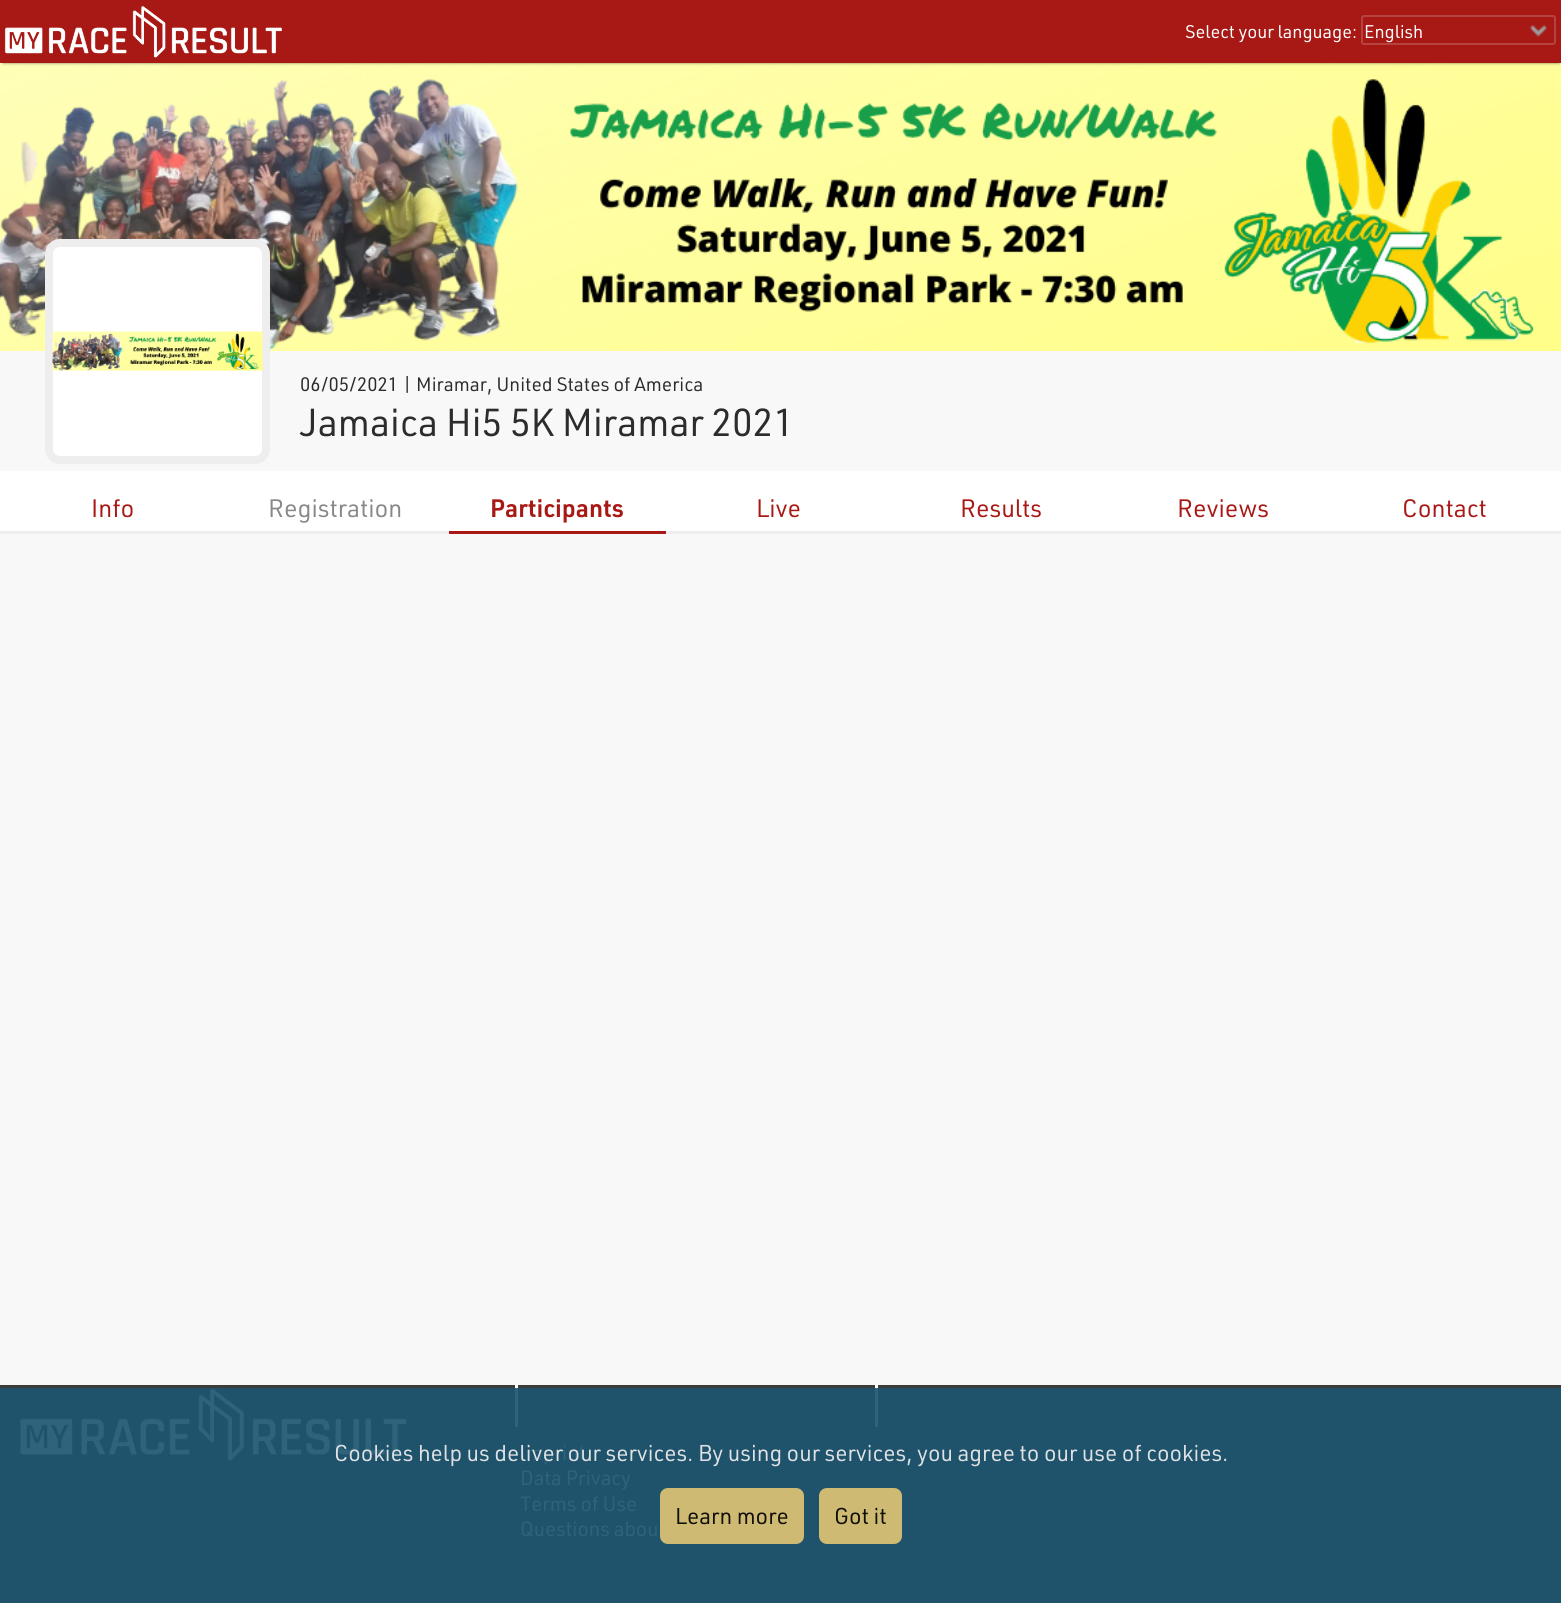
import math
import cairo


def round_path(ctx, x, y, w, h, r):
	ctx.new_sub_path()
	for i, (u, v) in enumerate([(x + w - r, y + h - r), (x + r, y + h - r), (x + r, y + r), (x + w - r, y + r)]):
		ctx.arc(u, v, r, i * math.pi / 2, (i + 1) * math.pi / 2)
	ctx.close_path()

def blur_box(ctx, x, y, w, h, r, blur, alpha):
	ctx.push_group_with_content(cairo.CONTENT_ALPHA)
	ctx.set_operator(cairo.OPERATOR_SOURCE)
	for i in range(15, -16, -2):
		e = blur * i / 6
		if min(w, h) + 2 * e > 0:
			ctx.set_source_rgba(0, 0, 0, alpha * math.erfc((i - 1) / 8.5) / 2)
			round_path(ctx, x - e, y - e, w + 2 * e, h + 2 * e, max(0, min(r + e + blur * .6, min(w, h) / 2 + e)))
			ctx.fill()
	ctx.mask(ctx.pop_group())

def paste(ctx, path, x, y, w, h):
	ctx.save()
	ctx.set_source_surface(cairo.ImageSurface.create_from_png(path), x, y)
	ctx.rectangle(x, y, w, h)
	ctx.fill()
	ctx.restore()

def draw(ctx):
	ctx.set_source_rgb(0.969, 0.969, 0.969)
	ctx.paint()
	paste(ctx, 'media/3.png', 0, 63, 1561, 288)
	ctx.set_source_rgb(0, 0, 0)
	blur_box(ctx, 3, 6, 1556, 57, 0, 1.5, 0.52)
	ctx.set_source_rgb(0.659, 0.094, 0.082)
	ctx.rectangle(0, 0, 1561, 63)
	ctx.fill()
	paste(ctx, 'media/1.png', 4, 6, 278, 52)
	ctx.select_font_face('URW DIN')
	ctx.set_font_size(18)
	ctx.set_source_rgb(1, 1, 1)
	ctx.move_to(1185, 38)
	ctx.show_text('Select your language:')
	paste(ctx, 'media/2.png', 1529, 25, 18, 12)
	round_path(ctx, 1362, 16, 193, 28, 2)
	ctx.set_source_rgb(0.718, 0.263, 0.251)
	ctx.stroke()
	ctx.set_source_rgb(1, 1, 1)
	ctx.move_to(1364, 38)
	ctx.show_text('English')
	round_path(ctx, 49, 243, 217, 217, 11)
	ctx.fill_preserve()
	ctx.set_source_rgb(0.933, 0.933, 0.933)
	ctx.set_line_width(8)
	ctx.stroke()
	paste(ctx, 'media/4.png', 52, 331, 211, 40)
	ctx.set_font_size(19.1)
	ctx.set_source_rgb(0.173, 0.173, 0.173)
	ctx.move_to(300, 391)
	ctx.show_text('06/05/2021 | Miramar, United States of America')
	ctx.set_font_size(38.25)
	ctx.move_to(300, 436)
	ctx.show_text('Jamaica Hi5 5K Miramar 2021')
	ctx.set_source_rgb(1, 1, 1)
	ctx.rectangle(0, 471, 1561, 60)
	ctx.fill()
	ctx.set_source_rgb(0.933, 0.933, 0.933)
	ctx.rectangle(0, 531, 1561, 3)
	ctx.fill()
	ctx.set_font_size(24.75)
	ctx.set_source_rgb(0.659, 0.094, 0.082)
	ctx.move_to(91, 517)
	ctx.show_text('Info')
	ctx.set_source_rgb(0.533, 0.533, 0.533)
	ctx.move_to(268, 517)
	ctx.show_text('Registration')
	ctx.set_source_rgb(0.659, 0.094, 0.082)
	ctx.rectangle(449, 531, 217, 3)
	ctx.fill()
	ctx.select_font_face('URW DIN SemiBold')
	ctx.move_to(490, 517)
	ctx.show_text('Participants')
	ctx.select_font_face('URW DIN')
	for x, y, s in [
		(756, 517, 'Live'),
		(960, 517, 'Results'),
		(1177, 517, 'Reviews'),
		(1402, 517, 'Contact'),
	]:
		ctx.move_to(x, y)
		ctx.show_text(s)
	ctx.set_source_rgb(0.122, 0.322, 0.42)
	ctx.rectangle(0, 1388, 1561, 215)
	ctx.fill()
	paste(ctx, 'media/5.png', 20, 1389, 387, 72)
	ctx.set_font_size(20.25)
	ctx.set_source_rgb(0.184, 0.384, 0.482)
	ctx.move_to(520, 1460)
	ctx.show_text('Imprint')
	ctx.set_font_size(22.5)
	ctx.set_source_rgb(0.871, 0.886, 0.894)
	ctx.move_to(334, 1461)
	ctx.show_text('Cookies help us deliver our services. By using our services, you agree to our use of cookies.')
	ctx.set_source_rgba(0.867, 0.765, 0.455, 0.92)
	round_path(ctx, 660, 1488, 144, 56, 8)
	ctx.fill()
	ctx.set_source_rgb(0.063, 0.059, 0.035)
	ctx.move_to(675, 1524)
	ctx.show_text('Learn more')
	ctx.set_source_rgba(0.867, 0.765, 0.455, 0.92)
	round_path(ctx, 819, 1488, 83, 56, 8)
	ctx.fill()
	ctx.set_source_rgb(0.063, 0.059, 0.035)
	ctx.move_to(834, 1524)
	ctx.show_text('Got it')
	ctx.set_source_rgb(0.235, 0.235, 0.231)
	ctx.rectangle(0, 1385, 1561, 3)
	ctx.fill()
	ctx.set_source_rgb(1, 1, 1)
	ctx.rectangle(875, 1385, 3, 3)
	ctx.fill()
	ctx.set_source_rgb(0.184, 0.384, 0.482)
	ctx.rectangle(875, 1388, 3, 39)
	ctx.fill()
	ctx.set_source_rgb(1, 1, 1)
	ctx.rectangle(515, 1385, 3, 3)
	ctx.fill()
	ctx.set_source_rgb(0.184, 0.384, 0.482)
	ctx.rectangle(515, 1388, 3, 39)
	ctx.fill()
	ctx.set_font_size(20.25)
	for x, y, s in [
		(520, 1485, 'Data Privacy'),
		(520, 1511, 'Terms of Use'),
		(520, 1536, 'Questions abou'),
	]:
		ctx.move_to(x, y)
		ctx.show_text(s)


surface = cairo.ImageSurface(cairo.FORMAT_RGB24, 1561, 1603)
ctx = cairo.Context(surface)
options = cairo.FontOptions()
options.set_hint_metrics(cairo.HINT_METRICS_OFF)
options.set_hint_style(cairo.HINT_STYLE_NONE)
ctx.set_font_options(options)
ctx.set_miter_limit(4)
draw(ctx)
surface.write_to_png('image.png')
